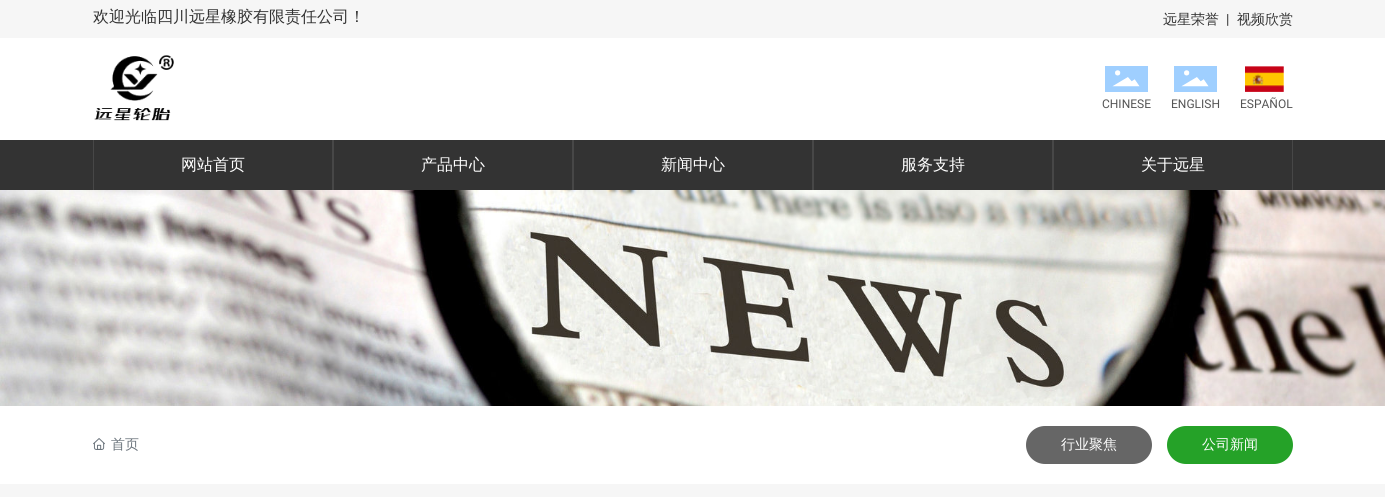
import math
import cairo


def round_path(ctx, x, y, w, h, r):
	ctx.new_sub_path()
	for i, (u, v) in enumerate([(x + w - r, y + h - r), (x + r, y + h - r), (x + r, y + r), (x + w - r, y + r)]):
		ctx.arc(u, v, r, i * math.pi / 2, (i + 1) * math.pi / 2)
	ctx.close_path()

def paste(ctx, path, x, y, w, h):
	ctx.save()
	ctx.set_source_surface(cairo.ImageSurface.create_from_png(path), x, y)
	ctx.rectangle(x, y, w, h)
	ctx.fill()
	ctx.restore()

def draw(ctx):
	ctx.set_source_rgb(1, 1, 1)
	ctx.paint()
	ctx.set_source_rgb(0.961, 0.961, 0.961)
	ctx.rectangle(0, 0, 1385, 38)
	ctx.fill()
	ctx.select_font_face('WenQuanYi Zen Hei Medium')
	ctx.set_font_size(16)
	ctx.set_source_rgb(0.2, 0.2, 0.2)
	ctx.move_to(93, 22)
	ctx.show_text('欢迎光临四川远星橡胶有限责任公司！')
	ctx.set_font_size(14)
	ctx.move_to(1163, 24)
	ctx.show_text('远星荣誉')
	ctx.select_font_face('Roboto')
	ctx.move_to(1226, 24)
	ctx.show_text('|')
	ctx.select_font_face('WenQuanYi Zen Hei Medium')
	ctx.move_to(1237, 24)
	ctx.show_text('视频欣赏')
	paste(ctx, 'media/1.png', 94, 55, 80, 66)
	paste(ctx, 'media/2.png', 1105, 66, 43, 26)
	ctx.select_font_face('Roboto')
	ctx.set_font_size(12)
	ctx.set_source_rgb(0.333, 0.333, 0.333)
	ctx.move_to(1102, 108)
	ctx.show_text('CHINESE')
	paste(ctx, 'media/2.png', 1174, 66, 43, 26)
	ctx.move_to(1171, 108)
	ctx.show_text('ENGLISH')
	paste(ctx, 'media/3.png', 1245, 66, 39, 26)
	ctx.move_to(1240, 108)
	ctx.show_text('ESPAÑOL')
	ctx.set_source_rgb(0.2, 0.2, 0.2)
	ctx.rectangle(0, 140, 1385, 50)
	ctx.fill()
	ctx.set_source_rgb(0.278, 0.278, 0.278)
	ctx.rectangle(332, 140, 2, 50)
	ctx.rectangle(93, 140, 1, 50)
	ctx.fill()
	ctx.select_font_face('WenQuanYi Zen Hei Medium')
	ctx.set_font_size(16)
	ctx.set_source_rgb(1, 1, 1)
	ctx.move_to(181, 170)
	ctx.show_text('网站首页')
	ctx.set_source_rgb(0.278, 0.278, 0.278)
	ctx.rectangle(572, 140, 2, 50)
	ctx.fill()
	ctx.set_source_rgb(1, 1, 1)
	ctx.move_to(421, 170)
	ctx.show_text('产品中心')
	ctx.set_source_rgb(0.278, 0.278, 0.278)
	ctx.rectangle(812, 140, 2, 50)
	ctx.fill()
	ctx.set_source_rgb(1, 1, 1)
	ctx.move_to(661, 170)
	ctx.show_text('新闻中心')
	ctx.set_source_rgb(0.278, 0.278, 0.278)
	ctx.rectangle(1052, 140, 2, 50)
	ctx.fill()
	ctx.set_source_rgb(1, 1, 1)
	ctx.move_to(901, 170)
	ctx.show_text('服务支持')
	ctx.set_source_rgb(0.278, 0.278, 0.278)
	ctx.rectangle(1292, 140, 1, 50)
	ctx.fill()
	ctx.set_source_rgb(1, 1, 1)
	ctx.move_to(1141, 170)
	ctx.show_text('关于远星')
	paste(ctx, 'media/4.png', 0, 190, 1385, 216)
	paste(ctx, 'media/5.png', 93, 438, 12, 12)
	ctx.set_font_size(14)
	ctx.set_source_rgb(0.424, 0.459, 0.49)
	ctx.move_to(111, 449)
	ctx.show_text('首页')
	ctx.set_source_rgb(0.4, 0.4, 0.4)
	round_path(ctx, 1026, 426, 126, 38, 19)
	ctx.fill()
	ctx.set_source_rgb(1, 1, 1)
	ctx.move_to(1061, 449)
	ctx.show_text('行业聚焦')
	ctx.set_source_rgb(0.145, 0.635, 0.157)
	round_path(ctx, 1167, 426, 126, 38, 19)
	ctx.fill()
	ctx.set_source_rgb(1, 1, 1)
	ctx.move_to(1202, 449)
	ctx.show_text('公司新闻')
	ctx.set_source_rgb(0.961, 0.961, 0.961)
	ctx.rectangle(0, 484, 1385, 13)
	ctx.fill()


surface = cairo.ImageSurface(cairo.FORMAT_RGB24, 1385, 497)
ctx = cairo.Context(surface)
options = cairo.FontOptions()
options.set_hint_metrics(cairo.HINT_METRICS_OFF)
options.set_hint_style(cairo.HINT_STYLE_NONE)
ctx.set_font_options(options)
ctx.set_miter_limit(4)
draw(ctx)
surface.write_to_png('image.png')
